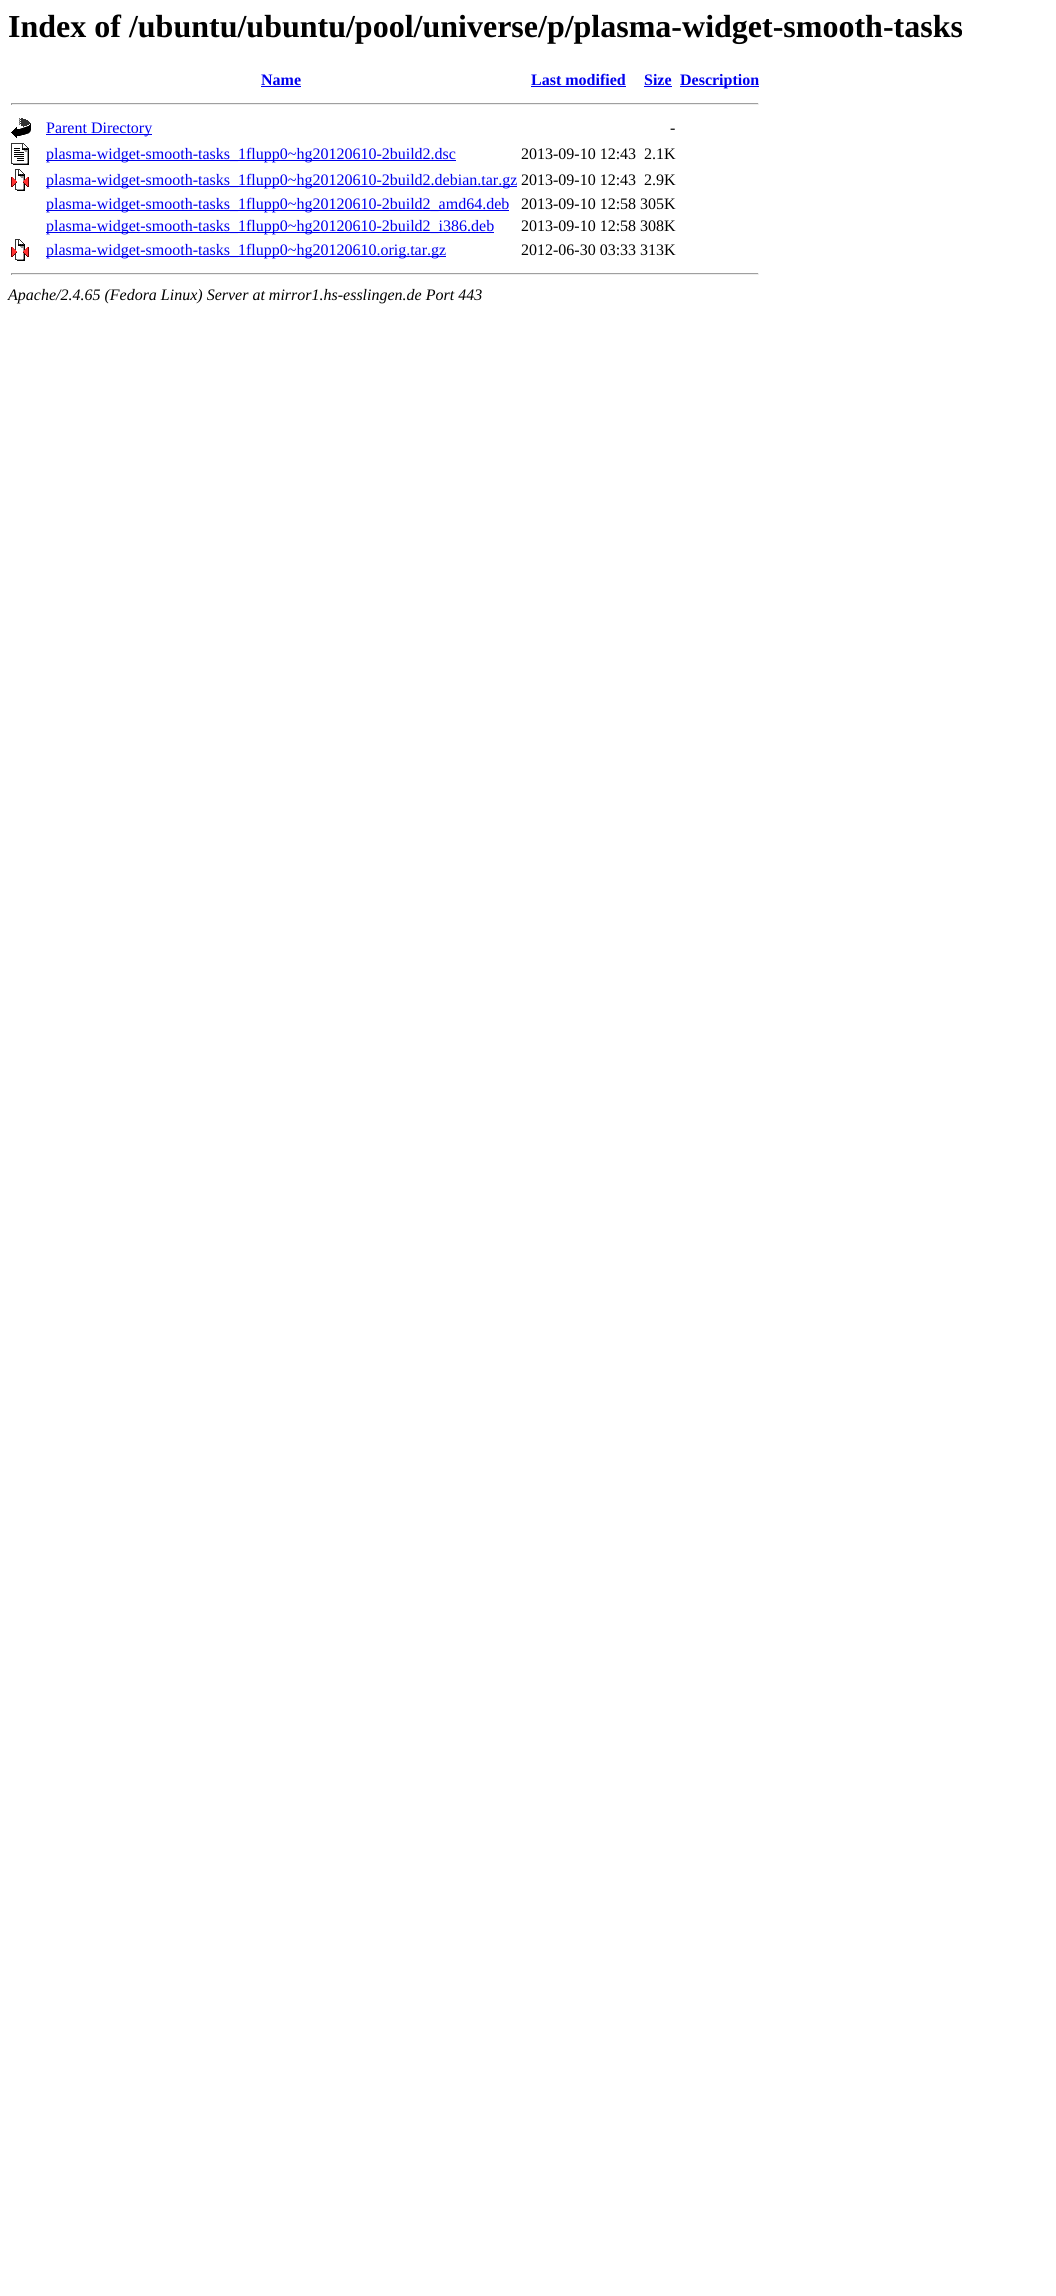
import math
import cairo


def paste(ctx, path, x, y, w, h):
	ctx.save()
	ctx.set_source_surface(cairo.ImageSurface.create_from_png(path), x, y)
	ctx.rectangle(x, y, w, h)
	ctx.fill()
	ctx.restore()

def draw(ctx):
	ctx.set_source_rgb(1, 1, 1)
	ctx.paint()
	ctx.select_font_face('Liberation Serif', cairo.FONT_SLANT_NORMAL, cairo.FONT_WEIGHT_BOLD)
	ctx.set_font_size(32)
	ctx.set_source_rgb(0, 0, 0)
	ctx.move_to(8, 37)
	ctx.show_text('Index of /ubuntu/ubuntu/pool/universe/p/plasma-widget-smooth-tasks')
	ctx.set_font_size(16)
	ctx.set_source_rgb(0, 0, 0.933)
	ctx.move_to(261, 85)
	ctx.show_text('Name')
	ctx.rectangle(261, 86, 40, 1)
	ctx.fill()
	ctx.move_to(531, 85)
	ctx.show_text('Last modified')
	ctx.rectangle(531, 86, 95, 1)
	ctx.fill()
	ctx.move_to(644, 85)
	ctx.show_text('Size')
	ctx.rectangle(644, 86, 28, 1)
	ctx.fill()
	ctx.rectangle(680, 86, 79, 1)
	ctx.fill()
	ctx.move_to(680, 85)
	ctx.show_text('Description')
	ctx.set_source_rgb(0.624, 0.624, 0.624)
	ctx.rectangle(11, 103, 748, 1)
	ctx.fill()
	ctx.set_source_rgb(0.933, 0.933, 0.933)
	ctx.rectangle(758, 103, 1, 2)
	ctx.rectangle(11, 104, 748, 1)
	ctx.fill()
	ctx.set_source_rgb(0.624, 0.624, 0.624)
	ctx.rectangle(11, 103, 1, 2)
	ctx.fill()
	paste(ctx, 'media/1.png', 11, 118, 20, 20)
	ctx.set_source_rgb(0, 0, 0.933)
	ctx.rectangle(46, 134, 106, 1)
	ctx.fill()
	ctx.select_font_face('Liberation Serif')
	ctx.move_to(46, 133)
	ctx.show_text('Parent Directory')
	ctx.set_source_rgb(0, 0, 0)
	ctx.move_to(670, 133)
	ctx.show_text('-')
	paste(ctx, 'media/2.png', 11, 143, 18, 22)
	ctx.set_source_rgb(0, 0, 0.933)
	ctx.rectangle(46, 160, 410, 1)
	ctx.fill()
	ctx.move_to(46, 159)
	ctx.show_text('plasma-widget-smooth-tasks_1flupp0~hg20120610-2build2.dsc')
	ctx.set_source_rgb(0, 0, 0)
	ctx.move_to(521, 159)
	ctx.show_text('2013-09-10 12:43')
	ctx.move_to(644, 159)
	ctx.show_text('2.1K')
	paste(ctx, 'media/3.png', 11, 169, 18, 22)
	ctx.set_source_rgb(0, 0, 0.933)
	ctx.rectangle(46, 186, 471, 1)
	ctx.fill()
	ctx.move_to(46, 185)
	ctx.show_text('plasma-widget-smooth-tasks_1flupp0~hg20120610-2build2.debian.tar.gz')
	ctx.set_source_rgb(0, 0, 0)
	ctx.move_to(521, 185)
	ctx.show_text('2013-09-10 12:43')
	ctx.move_to(644, 185)
	ctx.show_text('2.9K')
	ctx.set_source_rgb(0, 0, 0.933)
	ctx.rectangle(46, 210, 463, 1)
	ctx.fill()
	ctx.move_to(46, 209)
	ctx.show_text('plasma-widget-smooth-tasks_1flupp0~hg20120610-2build2_amd64.deb')
	ctx.set_source_rgb(0, 0, 0)
	ctx.move_to(521, 209)
	ctx.show_text('2013-09-10 12:58 305K')
	ctx.set_source_rgb(0, 0, 0.933)
	ctx.rectangle(46, 232, 448, 1)
	ctx.fill()
	ctx.move_to(46, 231)
	ctx.show_text('plasma-widget-smooth-tasks_1flupp0~hg20120610-2build2_i386.deb')
	ctx.set_source_rgb(0, 0, 0)
	ctx.move_to(521, 231)
	ctx.show_text('2013-09-10 12:58 308K')
	paste(ctx, 'media/3.png', 11, 239, 18, 22)
	ctx.set_source_rgb(0, 0, 0.933)
	ctx.rectangle(46, 256, 400, 1)
	ctx.fill()
	ctx.move_to(46, 255)
	ctx.show_text('plasma-widget-smooth-tasks_1flupp0~hg20120610.orig.tar.gz')
	ctx.set_source_rgb(0, 0, 0)
	ctx.move_to(521, 255)
	ctx.show_text('2012-06-30 03:33 313K')
	ctx.set_source_rgb(0.624, 0.624, 0.624)
	ctx.rectangle(11, 273, 748, 1)
	ctx.fill()
	ctx.set_source_rgb(0.933, 0.933, 0.933)
	ctx.rectangle(758, 273, 1, 2)
	ctx.rectangle(11, 274, 748, 1)
	ctx.fill()
	ctx.set_source_rgb(0.624, 0.624, 0.624)
	ctx.rectangle(11, 273, 1, 2)
	ctx.fill()
	ctx.select_font_face('Liberation Serif', cairo.FONT_SLANT_ITALIC)
	ctx.set_source_rgb(0, 0, 0)
	ctx.move_to(8, 300)
	ctx.show_text('Apache/2.4.65 (Fedora Linux) Server at mirror1.hs-esslingen.de Port 443')


surface = cairo.ImageSurface(cairo.FORMAT_RGB24, 1056, 2296)
ctx = cairo.Context(surface)
options = cairo.FontOptions()
options.set_hint_metrics(cairo.HINT_METRICS_OFF)
options.set_hint_style(cairo.HINT_STYLE_NONE)
ctx.set_font_options(options)
ctx.set_miter_limit(4)
draw(ctx)
surface.write_to_png('image.png')
